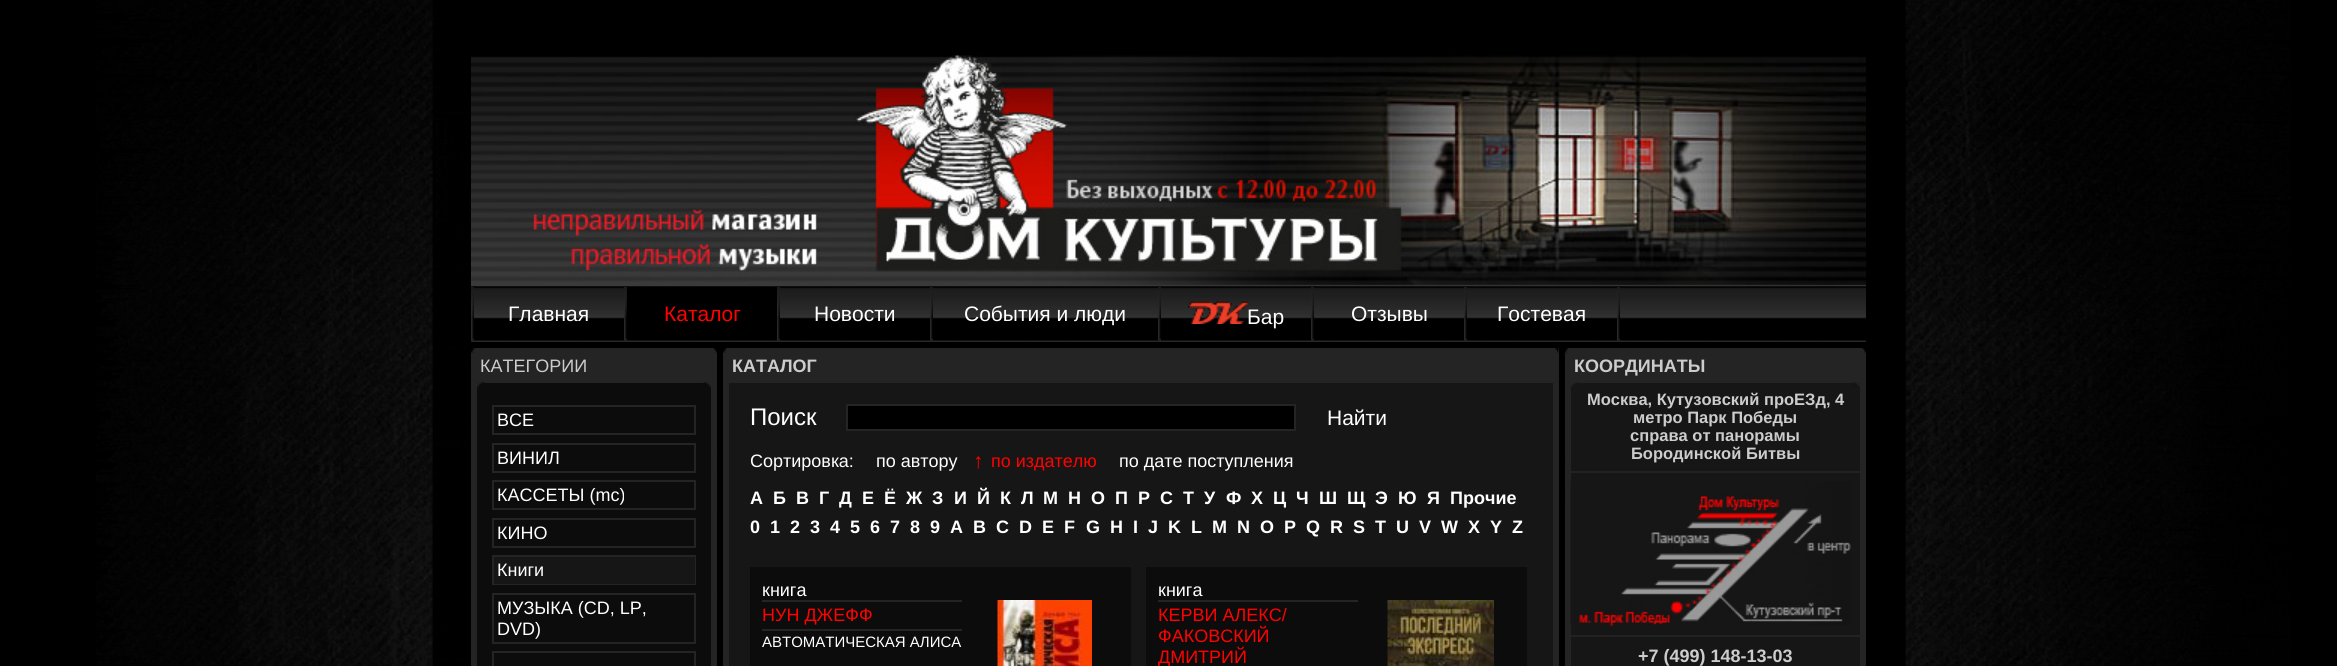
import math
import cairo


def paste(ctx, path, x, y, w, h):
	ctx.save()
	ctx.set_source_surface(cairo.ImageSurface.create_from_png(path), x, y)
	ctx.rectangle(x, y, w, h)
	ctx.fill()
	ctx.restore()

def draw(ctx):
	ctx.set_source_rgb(0, 0, 0)
	ctx.paint()
	paste(ctx, 'media/1.png', 96, 0, 2194, 666)
	paste(ctx, 'media/2.png', 471, 29, 1395, 258)
	paste(ctx, 'media/3.png', 471, 286, 1395, 56)
	paste(ctx, 'media/4.png', 471, 287, 3, 54)
	ctx.select_font_face('Liberation Sans')
	ctx.set_font_size(21)
	ctx.set_source_rgb(1, 1, 1)
	ctx.move_to(508, 321)
	ctx.show_text('Главная')
	paste(ctx, 'media/5.png', 624, 287, 3, 54)
	ctx.set_source_rgb(0, 0, 0)
	ctx.rectangle(627, 287, 150, 32)
	ctx.fill()
	ctx.set_source_rgb(1, 0.004, 0)
	ctx.move_to(664, 321)
	ctx.show_text('Каталог')
	paste(ctx, 'media/5.png', 777, 287, 3, 54)
	ctx.set_source_rgb(1, 1, 1)
	ctx.move_to(814, 321)
	ctx.show_text('Новости')
	paste(ctx, 'media/5.png', 930, 287, 3, 54)
	ctx.move_to(964, 321)
	ctx.show_text('События и люди')
	paste(ctx, 'media/4.png', 1158, 287, 3, 54)
	paste(ctx, 'media/6.png', 1188, 301, 60, 23)
	ctx.move_to(1247, 324)
	ctx.show_text('Бар')
	paste(ctx, 'media/5.png', 1311, 287, 3, 54)
	ctx.move_to(1351, 321)
	ctx.show_text('Отзывы')
	paste(ctx, 'media/4.png', 1464, 287, 3, 54)
	ctx.move_to(1497, 321)
	ctx.show_text('Гостевая')
	paste(ctx, 'media/5.png', 1617, 287, 3, 54)
	ctx.set_source_rgb(0.141, 0.141, 0.141)
	ctx.rectangle(471, 348, 246, 318)
	ctx.fill()
	paste(ctx, 'media/7.png', 713, 348, 4, 5)
	paste(ctx, 'media/8.png', 471, 348, 4, 5)
	ctx.set_font_size(18)
	ctx.set_source_rgb(0.8, 0.8, 0.8)
	ctx.move_to(480, 372)
	ctx.show_text('КАТЕГОРИИ')
	ctx.set_source_rgb(0.047, 0.047, 0.047)
	ctx.rectangle(477, 383, 234, 283)
	ctx.fill()
	paste(ctx, 'media/9.png', 703, 382, 8, 6)
	paste(ctx, 'media/10.png', 477, 382, 8, 6)
	ctx.rectangle(493, 406, 202, 28)
	ctx.set_source_rgb(0.141, 0.141, 0.141)
	ctx.stroke()
	ctx.set_source_rgb(1, 1, 1)
	ctx.move_to(497, 426)
	ctx.show_text('ВСЕ')
	ctx.rectangle(493, 444, 202, 28)
	ctx.set_source_rgb(0.141, 0.141, 0.141)
	ctx.stroke()
	ctx.set_source_rgb(1, 1, 1)
	ctx.move_to(497, 464)
	ctx.show_text('ВИНИЛ')
	ctx.rectangle(493, 481, 202, 28)
	ctx.set_source_rgb(0.141, 0.141, 0.141)
	ctx.stroke()
	ctx.set_source_rgb(1, 1, 1)
	ctx.move_to(497, 501)
	ctx.show_text('КАССЕТЫ (mc)')
	ctx.rectangle(493, 519, 202, 28)
	ctx.set_source_rgb(0.141, 0.141, 0.141)
	ctx.stroke()
	ctx.set_source_rgb(1, 1, 1)
	ctx.move_to(497, 539)
	ctx.show_text('КИНО')
	ctx.rectangle(493, 556, 202, 28)
	ctx.set_source_rgb(0.141, 0.141, 0.141)
	ctx.stroke()
	ctx.set_source_rgb(0.086, 0.086, 0.086)
	ctx.rectangle(494, 557, 201, 27)
	ctx.fill()
	ctx.set_source_rgb(1, 1, 1)
	ctx.move_to(497, 576)
	ctx.show_text('Книги')
	ctx.rectangle(493, 594, 202, 49)
	ctx.set_source_rgb(0.141, 0.141, 0.141)
	ctx.stroke()
	ctx.set_source_rgb(1, 1, 1)
	ctx.move_to(497, 614)
	ctx.show_text('МУЗЫКА (CD, LP,')
	ctx.move_to(497, 635)
	ctx.show_text('DVD)')
	ctx.rectangle(493, 652, 202, 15)
	ctx.set_source_rgb(0.141, 0.141, 0.141)
	ctx.stroke()
	ctx.rectangle(723, 348, 836, 318)
	ctx.fill()
	paste(ctx, 'media/11.png', 1555, 348, 4, 5)
	paste(ctx, 'media/8.png', 723, 348, 4, 5)
	ctx.select_font_face('Liberation Sans', cairo.FONT_SLANT_NORMAL, cairo.FONT_WEIGHT_BOLD)
	ctx.set_source_rgb(0.8, 0.8, 0.8)
	ctx.move_to(732, 372)
	ctx.show_text('КАТАЛОГ')
	ctx.set_source_rgb(0.086, 0.086, 0.086)
	ctx.rectangle(729, 383, 824, 283)
	ctx.fill()
	ctx.select_font_face('Liberation Sans')
	ctx.set_font_size(24)
	ctx.set_source_rgb(1, 1, 1)
	ctx.move_to(750, 425)
	ctx.show_text('Поиск')
	ctx.set_source_rgb(0, 0, 0)
	ctx.rectangle(847, 405, 448, 25)
	ctx.fill_preserve()
	ctx.set_source_rgb(0.141, 0.141, 0.141)
	ctx.stroke()
	ctx.set_font_size(21)
	ctx.set_source_rgb(1, 1, 1)
	ctx.move_to(1327, 425)
	ctx.show_text('Найти')
	ctx.set_font_size(18)
	ctx.move_to(750, 467)
	ctx.show_text('Сортировка:')
	ctx.move_to(876, 467)
	ctx.show_text('по автору')
	ctx.select_font_face('Liberation Sans', cairo.FONT_SLANT_NORMAL, cairo.FONT_WEIGHT_BOLD)
	ctx.set_font_size(21)
	ctx.set_source_rgb(1, 0.004, 0)
	ctx.move_to(973, 468)
	ctx.show_text('↑')
	ctx.select_font_face('Liberation Sans')
	ctx.set_font_size(18)
	ctx.move_to(991, 467)
	ctx.show_text('по издателю')
	ctx.set_source_rgb(1, 1, 1)
	ctx.move_to(1119, 467)
	ctx.show_text('по дате поступления')
	ctx.select_font_face('Liberation Sans', cairo.FONT_SLANT_NORMAL, cairo.FONT_WEIGHT_BOLD)
	for x, y, s in [
		(750, 504, 'А'),
		(773, 504, 'Б'),
		(796, 504, 'В'),
		(819, 504, 'Г'),
		(839, 504, 'Д'),
		(862, 504, 'Е'),
		(884, 504, 'Ё'),
		(906, 504, 'Ж'),
		(932, 504, 'З'),
		(954, 504, 'И'),
		(977, 504, 'Й'),
		(1000, 504, 'К'),
		(1021, 504, 'Л'),
		(1043, 504, 'М'),
		(1068, 504, 'Н'),
		(1091, 504, 'О'),
		(1115, 504, 'П'),
		(1138, 504, 'Р'),
		(1160, 504, 'С'),
		(1183, 504, 'Т'),
		(1204, 504, 'У'),
		(1226, 504, 'Ф'),
		(1251, 504, 'Х'),
		(1273, 504, 'Ц'),
		(1296, 504, 'Ч'),
		(1319, 504, 'Ш'),
		(1347, 504, 'Щ'),
		(1375, 504, 'Э'),
		(1398, 504, 'Ю'),
		(1427, 504, 'Я'),
		(1450, 504, 'Прочие'),
		(750, 533, '0'),
		(770, 533, '1'),
		(790, 533, '2'),
		(810, 533, '3'),
		(830, 533, '4'),
		(850, 533, '5'),
		(870, 533, '6'),
		(890, 533, '7'),
		(910, 533, '8'),
		(930, 533, '9'),
		(950, 533, 'A'),
		(973, 533, 'B'),
		(996, 533, 'C'),
		(1019, 533, 'D'),
		(1042, 533, 'E'),
		(1064, 533, 'F'),
		(1086, 533, 'G'),
		(1110, 533, 'H'),
		(1133, 533, 'I'),
		(1148, 533, 'J'),
		(1168, 533, 'K'),
		(1191, 533, 'L'),
		(1212, 533, 'M'),
		(1237, 533, 'N'),
		(1260, 533, 'O'),
		(1284, 533, 'P'),
		(1306, 533, 'Q'),
		(1330, 533, 'R'),
		(1353, 533, 'S'),
		(1375, 533, 'T'),
		(1396, 533, 'U'),
		(1419, 533, 'V'),
		(1441, 533, 'W'),
		(1468, 533, 'X'),
		(1490, 533, 'Y'),
		(1512, 533, 'Z'),
	]:
		ctx.move_to(x, y)
		ctx.show_text(s)
	ctx.set_source_rgb(0.047, 0.047, 0.047)
	ctx.rectangle(750, 567, 381, 99)
	ctx.fill()
	ctx.select_font_face('Liberation Sans')
	ctx.set_source_rgb(1, 1, 1)
	ctx.move_to(762, 596)
	ctx.show_text('книга')
	ctx.set_source_rgb(0.141, 0.141, 0.141)
	ctx.rectangle(762, 600, 200, 2)
	ctx.fill()
	ctx.set_source_rgb(1, 0.004, 0)
	ctx.move_to(762, 621)
	ctx.show_text('НУН ДЖЕФФ')
	ctx.set_source_rgb(0.141, 0.141, 0.141)
	ctx.rectangle(762, 629, 200, 2)
	ctx.fill()
	ctx.set_font_size(15)
	ctx.set_source_rgb(1, 1, 1)
	ctx.move_to(762, 647)
	ctx.show_text('АВТОМАТИЧЕСКАЯ АЛИСА')
	paste(ctx, 'media/12.png', 997, 600, 95, 66)
	ctx.set_source_rgb(0.047, 0.047, 0.047)
	ctx.rectangle(1146, 567, 381, 99)
	ctx.fill()
	ctx.set_font_size(18)
	ctx.set_source_rgb(1, 1, 1)
	ctx.move_to(1158, 596)
	ctx.show_text('книга')
	ctx.set_source_rgb(0.141, 0.141, 0.141)
	ctx.rectangle(1158, 600, 200, 2)
	ctx.fill()
	ctx.set_source_rgb(1, 0.004, 0)
	for x, y, s in [
		(1158, 621, 'КЕРВИ АЛЕКС/'),
		(1158, 642, 'ФАКОВСКИЙ'),
		(1158, 663, 'ДМИТРИЙ'),
	]:
		ctx.move_to(x, y)
		ctx.show_text(s)
	paste(ctx, 'media/13.png', 1387, 600, 107, 66)
	ctx.set_source_rgb(0.141, 0.141, 0.141)
	ctx.rectangle(1565, 348, 301, 318)
	ctx.fill()
	paste(ctx, 'media/14.png', 1862, 348, 4, 5)
	paste(ctx, 'media/15.png', 1564, 348, 4, 7)
	ctx.select_font_face('Liberation Sans', cairo.FONT_SLANT_NORMAL, cairo.FONT_WEIGHT_BOLD)
	ctx.set_source_rgb(0.8, 0.8, 0.8)
	ctx.move_to(1574, 372)
	ctx.show_text('КООРДИНАТЫ')
	ctx.set_source_rgb(0.086, 0.086, 0.086)
	ctx.rectangle(1571, 383, 289, 283)
	ctx.fill()
	paste(ctx, 'media/16.png', 1852, 382, 8, 5)
	paste(ctx, 'media/17.png', 1570, 382, 8, 8)
	ctx.set_font_size(16.5)
	ctx.set_source_rgb(0.8, 0.8, 0.8)
	for x, y, s in [
		(1587, 405, 'Москва, Кутузовский проЕЗд, 4'),
		(1633, 423, 'метро Парк Победы'),
		(1630, 441, 'справа от панорамы'),
		(1631, 459, 'Бородинской Битвы'),
	]:
		ctx.move_to(x, y)
		ctx.show_text(s)
	ctx.set_source_rgb(0.133, 0.133, 0.133)
	ctx.rectangle(1571, 471, 289, 2)
	ctx.fill()
	paste(ctx, 'media/18.png', 1570, 481, 281, 145)
	ctx.rectangle(1571, 635, 289, 2)
	ctx.fill()
	ctx.set_font_size(18)
	ctx.set_source_rgb(0.8, 0.8, 0.8)
	ctx.move_to(1638, 662)
	ctx.show_text('+7 (499) 148-13-03')


surface = cairo.ImageSurface(cairo.FORMAT_RGB24, 2337, 666)
ctx = cairo.Context(surface)
options = cairo.FontOptions()
options.set_hint_metrics(cairo.HINT_METRICS_OFF)
options.set_hint_style(cairo.HINT_STYLE_NONE)
ctx.set_font_options(options)
ctx.set_miter_limit(4)
draw(ctx)
surface.write_to_png('image.png')
